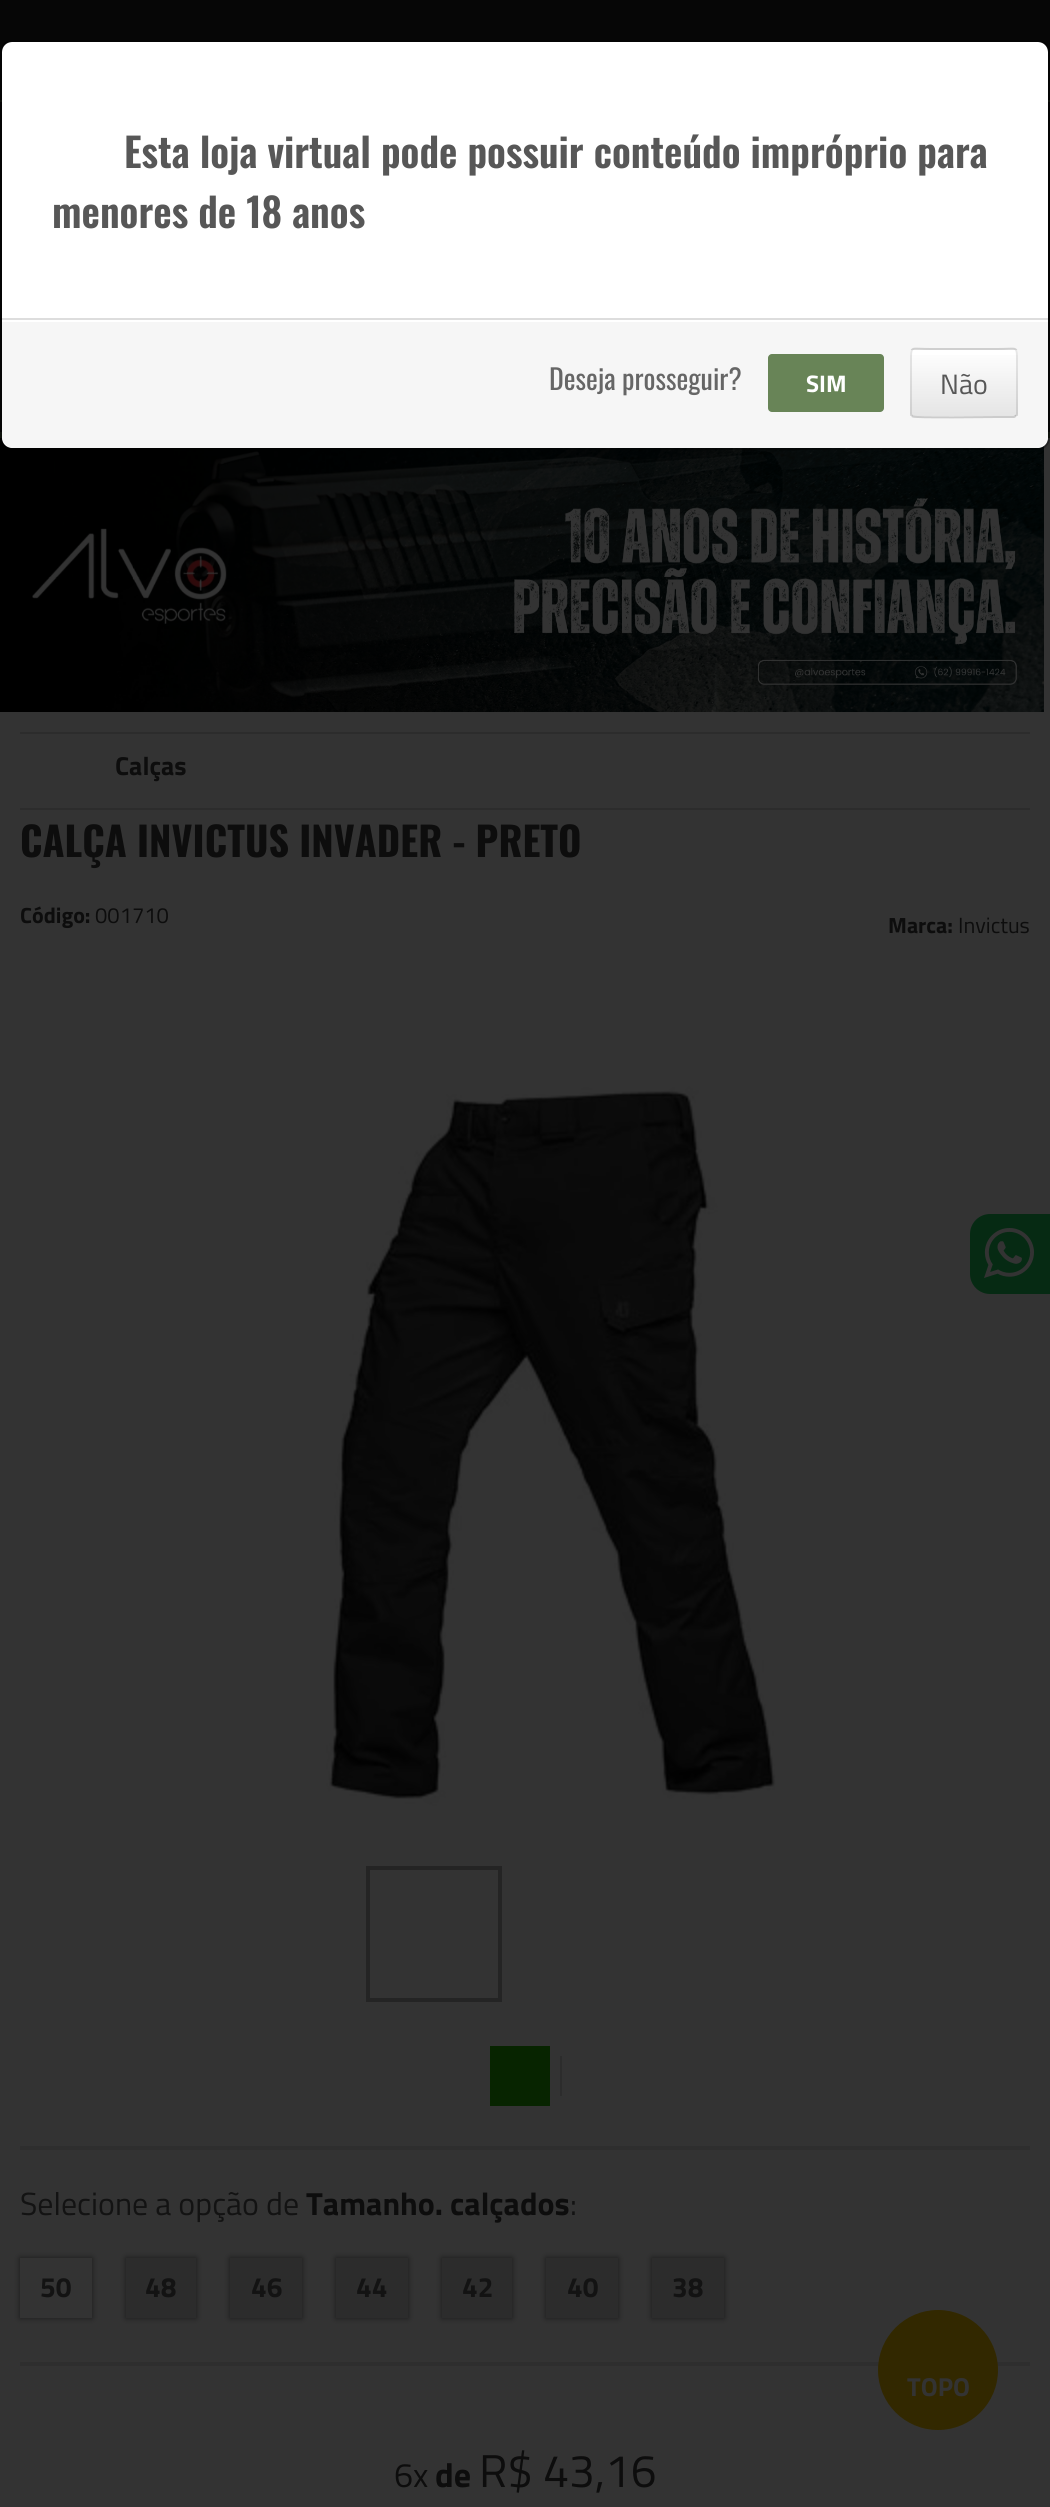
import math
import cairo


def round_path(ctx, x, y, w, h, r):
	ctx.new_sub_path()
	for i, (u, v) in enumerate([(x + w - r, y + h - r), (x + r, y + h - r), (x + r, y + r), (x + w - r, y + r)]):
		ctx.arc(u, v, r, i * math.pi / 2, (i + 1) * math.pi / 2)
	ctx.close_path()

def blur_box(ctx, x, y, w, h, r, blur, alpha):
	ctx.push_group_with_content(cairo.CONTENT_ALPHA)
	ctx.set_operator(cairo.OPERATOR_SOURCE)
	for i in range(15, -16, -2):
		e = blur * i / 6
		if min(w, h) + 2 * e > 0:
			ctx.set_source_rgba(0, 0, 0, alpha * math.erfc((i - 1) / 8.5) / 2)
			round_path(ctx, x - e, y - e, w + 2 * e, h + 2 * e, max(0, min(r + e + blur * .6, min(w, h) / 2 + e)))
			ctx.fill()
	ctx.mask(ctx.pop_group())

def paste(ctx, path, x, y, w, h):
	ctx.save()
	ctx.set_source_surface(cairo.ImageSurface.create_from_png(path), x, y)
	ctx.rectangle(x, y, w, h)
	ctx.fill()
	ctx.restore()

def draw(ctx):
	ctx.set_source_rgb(0.2, 0.2, 0.2)
	ctx.paint()
	ctx.set_source_rgb(0.027, 0.027, 0.027)
	ctx.rectangle(0, 102, 1050, 330)
	ctx.fill()
	ctx.set_source_rgb(0.024, 0.024, 0.024)
	ctx.rectangle(0, 0, 1050, 100)
	ctx.fill()
	ctx.set_source_rgb(0.082, 0.102, 0.067)
	ctx.rectangle(0, 100, 1050, 2)
	ctx.rectangle(0, 432, 1050, 6)
	ctx.fill()
	paste(ctx, 'media/1.png', 0, 438, 1044, 274)
	ctx.set_source_rgb(1, 1, 1)
	round_path(ctx, 2, 42, 1046, 406, 10)
	ctx.fill()
	round_path(ctx, 1, 41, 1048, 408, 11)
	ctx.set_source_rgba(0, 0, 0, 0.3)
	ctx.stroke()
	ctx.select_font_face('Oswald SemiBold')
	ctx.set_font_size(40)
	ctx.set_source_rgb(0.341, 0.341, 0.341)
	ctx.move_to(124, 168)
	ctx.show_text('Esta loja virtual pode possuir conteúdo impróprio para')
	ctx.move_to(52, 228)
	ctx.show_text('menores de 18 anos')
	ctx.set_source_rgb(0.961, 0.961, 0.961)
	ctx.new_path()
	ctx.move_to(2, 318)
	ctx.line_to(1048, 318)
	ctx.line_to(1048, 436)
	ctx.curve_to(1048, 442.5, 1042.5, 448, 1036, 448)
	ctx.line_to(14, 448)
	ctx.curve_to(7.5, 448, 2, 442.5, 2, 436)
	ctx.close_path()
	ctx.fill()
	ctx.set_source_rgb(1, 1, 1)
	ctx.rectangle(2, 320, 1046, 2)
	ctx.fill()
	ctx.set_source_rgb(0.867, 0.867, 0.867)
	ctx.rectangle(2, 318, 1046, 2)
	ctx.fill()
	ctx.select_font_face('Oswald')
	ctx.set_font_size(28)
	ctx.set_source_rgb(0.4, 0.4, 0.4)
	ctx.move_to(549, 390)
	ctx.show_text('Deseja prosseguir?')
	ctx.set_source_rgb(0.408, 0.518, 0.341)
	round_path(ctx, 768, 354, 116, 58, 4)
	ctx.fill()
	ctx.select_font_face('Titillium Web', cairo.FONT_SLANT_NORMAL, cairo.FONT_WEIGHT_BOLD)
	ctx.set_font_size(24)
	ctx.set_source_rgb(1, 1, 1)
	ctx.move_to(806, 392)
	ctx.show_text('SIM')
	round_path(ctx, 910, 348, 108, 70, 4)
	ctx.fill()
	ctx.save()
	round_path(ctx, 910, 348, 108, 70, 4)
	ctx.clip()
	gradient = cairo.LinearGradient(964, 284, 964, 350)
	gradient.add_color_stop_rgba(0, 1, 1, 1, 0.1)
	gradient.add_color_stop_rgba(1, 0, 0, 0, 0.1)
	ctx.set_source(gradient)
	ctx.rectangle(910, 348, 108, 2)
	ctx.fill()
	ctx.restore()
	gradient = cairo.LinearGradient(964, 350, 964, 416)
	gradient.add_color_stop_rgba(0, 1, 1, 1, 0.1)
	gradient.add_color_stop_rgba(1, 0, 0, 0, 0.1)
	ctx.set_source(gradient)
	ctx.rectangle(910, 355, 108, 61)
	ctx.fill()
	ctx.new_path()
	ctx.move_to(1016, 416)
	ctx.line_to(1014, 417)
	ctx.line_to(997.5, 417)
	ctx.curve_to(988.5, 417, 914.5, 418, 912.5, 416.5)
	ctx.line_to(912, 416)
	ctx.set_source_rgba(0, 0, 0, 0.2)
	ctx.stroke()
	ctx.new_path()
	ctx.move_to(912, 416)
	ctx.line_to(911, 414)
	ctx.line_to(911, 362.5)
	ctx.curve_to(911, 344.5, 910, 349, 930.5, 349)
	ctx.line_to(997.5, 349)
	ctx.curve_to(1018, 349, 1017, 344.5, 1017, 362.5)
	ctx.line_to(1017, 414)
	ctx.line_to(1016, 416)
	ctx.set_source_rgba(0, 0, 0, 0.1)
	ctx.stroke()
	ctx.select_font_face('Titillium Web')
	ctx.set_font_size(28)
	ctx.set_source_rgb(0.341, 0.341, 0.341)
	ctx.move_to(940, 394)
	ctx.show_text('Não')
	ctx.set_source_rgb(0.173, 0.173, 0.173)
	ctx.rectangle(20, 732, 1010, 2)
	ctx.fill()
	ctx.rectangle(20, 808, 1010, 2)
	ctx.fill()
	ctx.select_font_face('Titillium Web', cairo.FONT_SLANT_NORMAL, cairo.FONT_WEIGHT_BOLD)
	ctx.set_font_size(26)
	ctx.set_source_rgb(0.051, 0.051, 0.051)
	ctx.move_to(115, 775)
	ctx.show_text('Calças')
	ctx.select_font_face('Oswald', cairo.FONT_SLANT_NORMAL, cairo.FONT_WEIGHT_BOLD)
	ctx.set_font_size(40)
	ctx.move_to(20, 857)
	ctx.show_text('CALÇA INVICTUS INVADER - PRETO')
	ctx.select_font_face('Titillium Web', cairo.FONT_SLANT_NORMAL, cairo.FONT_WEIGHT_BOLD)
	ctx.set_font_size(22)
	ctx.move_to(20, 923)
	ctx.show_text('Código:')
	ctx.select_font_face('Titillium Web')
	ctx.move_to(95, 923)
	ctx.show_text('001710')
	ctx.select_font_face('Titillium Web', cairo.FONT_SLANT_NORMAL, cairo.FONT_WEIGHT_BOLD)
	ctx.move_to(888, 933)
	ctx.show_text('Marca:')
	ctx.select_font_face('Titillium Web')
	ctx.move_to(958, 933)
	ctx.show_text('Invictus')
	paste(ctx, 'media/2.png', 326, 1086, 450, 720)
	ctx.rectangle(368, 1868, 132, 132)
	ctx.set_source_rgb(0.141, 0.141, 0.141)
	ctx.set_line_width(4)
	ctx.stroke()
	ctx.set_source_rgb(0.18, 0.18, 0.18)
	ctx.rectangle(20, 2146, 1010, 4)
	ctx.fill()
	ctx.set_source_rgb(0.031, 0.141, 0)
	ctx.rectangle(490, 2046, 60, 60)
	ctx.fill()
	ctx.set_source_rgb(0.173, 0.173, 0.173)
	ctx.rectangle(560, 2056, 2, 40)
	ctx.fill()
	ctx.set_source_rgb(0.18, 0.18, 0.18)
	ctx.rectangle(20, 2362, 1010, 4)
	ctx.fill()
	ctx.set_font_size(32)
	ctx.set_source_rgb(0.078, 0.078, 0.078)
	ctx.move_to(20, 2215)
	ctx.show_text('Selecione a opção de')
	ctx.select_font_face('Titillium Web', cairo.FONT_SLANT_NORMAL, cairo.FONT_WEIGHT_BOLD)
	ctx.set_source_rgb(0.051, 0.051, 0.051)
	ctx.move_to(306, 2215)
	ctx.show_text('Tamanho. calçados')
	ctx.select_font_face('Titillium Web')
	ctx.set_source_rgb(0.078, 0.078, 0.078)
	ctx.move_to(570, 2215)
	ctx.show_text(':')
	ctx.save()
	ctx.set_fill_rule(cairo.FILL_RULE_EVEN_ODD)
	ctx.new_path()
	ctx.move_to(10, 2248)
	ctx.line_to(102, 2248)
	ctx.line_to(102, 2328)
	ctx.line_to(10, 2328)
	ctx.close_path()
	ctx.move_to(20, 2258)
	ctx.line_to(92, 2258)
	ctx.line_to(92, 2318)
	ctx.line_to(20, 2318)
	ctx.close_path()
	ctx.clip()
	ctx.set_source_rgb(0, 0, 0)
	blur_box(ctx, 20, 2258, 72, 60, 0, 3, 0.5)
	ctx.restore()
	ctx.select_font_face('Titillium Web', cairo.FONT_SLANT_NORMAL, cairo.FONT_WEIGHT_BOLD)
	ctx.set_font_size(28)
	ctx.move_to(40, 2297)
	ctx.show_text('50')
	ctx.set_source_rgb(0, 0, 0)
	blur_box(ctx, 126, 2258, 70, 60, 0, 3, 0.5)
	ctx.set_source_rgb(0.173, 0.173, 0.173)
	ctx.rectangle(126, 2258, 70, 60)
	ctx.fill()
	ctx.set_source_rgb(0.078, 0.078, 0.078)
	ctx.move_to(145, 2297)
	ctx.show_text('48')
	ctx.set_source_rgb(0, 0, 0)
	blur_box(ctx, 230, 2258, 72, 60, 0, 3, 0.5)
	ctx.set_source_rgb(0.173, 0.173, 0.173)
	ctx.rectangle(230, 2258, 72, 60)
	ctx.fill()
	ctx.set_source_rgb(0.078, 0.078, 0.078)
	ctx.move_to(251, 2297)
	ctx.show_text('46')
	ctx.set_source_rgb(0, 0, 0)
	blur_box(ctx, 336, 2258, 72, 60, 0, 3, 0.5)
	ctx.set_source_rgb(0.173, 0.173, 0.173)
	ctx.rectangle(336, 2258, 72, 60)
	ctx.fill()
	ctx.set_source_rgb(0.078, 0.078, 0.078)
	ctx.move_to(356, 2297)
	ctx.show_text('44')
	ctx.set_source_rgb(0, 0, 0)
	blur_box(ctx, 442, 2258, 70, 60, 0, 3, 0.5)
	ctx.set_source_rgb(0.173, 0.173, 0.173)
	ctx.rectangle(442, 2258, 70, 60)
	ctx.fill()
	ctx.set_source_rgb(0.078, 0.078, 0.078)
	ctx.move_to(462, 2297)
	ctx.show_text('42')
	ctx.set_source_rgb(0, 0, 0)
	blur_box(ctx, 546, 2258, 72, 60, 0, 3, 0.5)
	ctx.set_source_rgb(0.173, 0.173, 0.173)
	ctx.rectangle(546, 2258, 72, 60)
	ctx.fill()
	ctx.set_source_rgb(0.078, 0.078, 0.078)
	ctx.move_to(567, 2297)
	ctx.show_text('40')
	ctx.set_source_rgb(0, 0, 0)
	blur_box(ctx, 652, 2258, 72, 60, 0, 3, 0.5)
	ctx.set_source_rgb(0.173, 0.173, 0.173)
	ctx.rectangle(652, 2258, 72, 60)
	ctx.fill()
	ctx.set_source_rgb(0.078, 0.078, 0.078)
	ctx.move_to(672, 2297)
	ctx.show_text('38')
	ctx.select_font_face('Titillium Web')
	ctx.set_font_size(34)
	ctx.set_source_rgb(0.051, 0.051, 0.051)
	ctx.move_to(394, 2487)
	ctx.show_text('6x')
	ctx.select_font_face('Titillium Web', cairo.FONT_SLANT_NORMAL, cairo.FONT_WEIGHT_BOLD)
	ctx.move_to(435, 2487)
	ctx.show_text('de')
	ctx.select_font_face('Titillium Web')
	ctx.set_font_size(46)
	ctx.move_to(479, 2487)
	ctx.show_text('R$ 43,16')
	ctx.set_source_rgb(0.027, 0.165, 0.078)
	ctx.new_path()
	ctx.move_to(990, 1214)
	ctx.line_to(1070, 1214)
	ctx.line_to(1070, 1294)
	ctx.line_to(990, 1294)
	ctx.curve_to(979, 1294, 970, 1285, 970, 1274)
	ctx.line_to(970, 1234)
	ctx.curve_to(970, 1223, 979, 1214, 990, 1214)
	ctx.close_path()
	ctx.fill()
	paste(ctx, 'media/3.png', 984, 1228, 50, 50)
	ctx.set_source_rgb(0.196, 0.157, 0)
	ctx.arc(938, 2370, 60, 0, 2 * math.pi)
	ctx.fill()
	ctx.select_font_face('Titillium Web', cairo.FONT_SLANT_NORMAL, cairo.FONT_WEIGHT_BOLD)
	ctx.set_font_size(26)
	ctx.set_source_rgb(0.2, 0.2, 0.2)
	ctx.move_to(907, 2396)
	ctx.show_text('TOPO')


surface = cairo.ImageSurface(cairo.FORMAT_RGB24, 1050, 2507)
ctx = cairo.Context(surface)
options = cairo.FontOptions()
options.set_hint_metrics(cairo.HINT_METRICS_OFF)
options.set_hint_style(cairo.HINT_STYLE_NONE)
ctx.set_font_options(options)
ctx.set_miter_limit(4)
draw(ctx)
surface.write_to_png('image.png')
